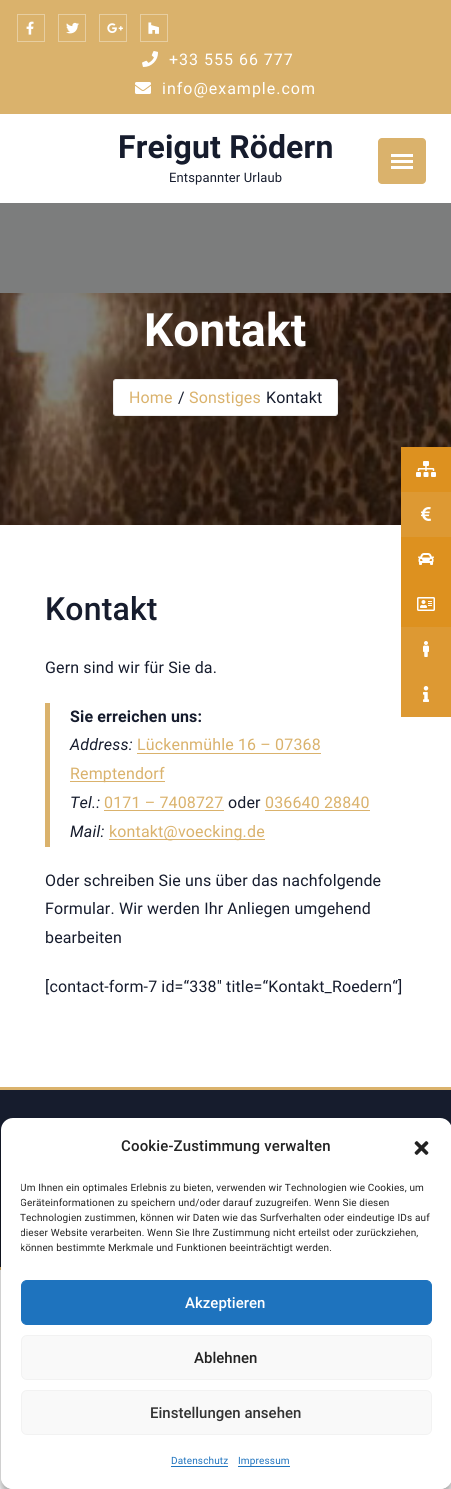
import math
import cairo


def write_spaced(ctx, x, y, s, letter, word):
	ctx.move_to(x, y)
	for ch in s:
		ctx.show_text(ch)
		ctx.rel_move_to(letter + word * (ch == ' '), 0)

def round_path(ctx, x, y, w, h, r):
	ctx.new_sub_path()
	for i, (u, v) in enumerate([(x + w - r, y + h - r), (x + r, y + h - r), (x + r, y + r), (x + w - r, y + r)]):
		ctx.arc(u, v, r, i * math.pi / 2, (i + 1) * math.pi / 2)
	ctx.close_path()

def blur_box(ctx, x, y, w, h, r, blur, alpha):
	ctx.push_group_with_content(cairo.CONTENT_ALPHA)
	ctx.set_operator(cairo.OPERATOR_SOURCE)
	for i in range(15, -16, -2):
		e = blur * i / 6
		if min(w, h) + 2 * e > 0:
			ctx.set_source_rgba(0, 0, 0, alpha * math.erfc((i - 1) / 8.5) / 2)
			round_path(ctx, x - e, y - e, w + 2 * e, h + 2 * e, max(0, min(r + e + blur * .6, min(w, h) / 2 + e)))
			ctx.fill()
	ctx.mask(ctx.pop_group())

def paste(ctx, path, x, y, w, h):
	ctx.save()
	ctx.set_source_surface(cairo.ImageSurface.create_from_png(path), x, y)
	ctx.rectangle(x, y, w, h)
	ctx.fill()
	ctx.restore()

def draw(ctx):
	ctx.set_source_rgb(1, 1, 1)
	ctx.paint()
	ctx.set_source_rgb(0.855, 0.698, 0.424)
	ctx.rectangle(0, 0, 451, 114)
	ctx.fill()
	ctx.rectangle(17.5, 14.5, 27, 27)
	ctx.set_source_rgb(0.906, 0.808, 0.631)
	ctx.set_line_width(1)
	ctx.stroke()
	paste(ctx, 'media/1.png', 26, 21, 8, 14)
	ctx.rectangle(58.5, 14.5, 27, 27)
	ctx.stroke()
	paste(ctx, 'media/2.png', 66, 22, 13, 12)
	ctx.rectangle(99.5, 14.5, 27, 27)
	ctx.stroke()
	paste(ctx, 'media/3.png', 107, 23, 16, 10)
	ctx.rectangle(140.5, 14.5, 27, 27)
	ctx.stroke()
	paste(ctx, 'media/4.png', 148, 22, 11, 12)
	paste(ctx, 'media/5.png', 142, 51, 16, 16)
	ctx.select_font_face('Roboto')
	ctx.set_font_size(16)
	ctx.set_source_rgb(1, 1, 1)
	write_spaced(ctx, 169, 65, '+33 555 66 777', 1, 0)
	paste(ctx, 'media/6.png', 135, 82, 16, 12)
	write_spaced(ctx, 162, 94, 'info@example.com', 1, 0)
	ctx.select_font_face('Roboto', cairo.FONT_SLANT_NORMAL, cairo.FONT_WEIGHT_BOLD)
	ctx.set_font_size(32)
	ctx.set_source_rgb(0.086, 0.11, 0.176)
	write_spaced(ctx, 118, 158, 'Freigut Rödern', 0.15, 0)
	ctx.select_font_face('Roboto')
	ctx.set_font_size(13)
	write_spaced(ctx, 169, 182, 'Entspannter Urlaub', 0.15, 0)
	ctx.set_source_rgb(0.855, 0.698, 0.424)
	round_path(ctx, 378, 138, 48, 46, 4)
	ctx.fill()
	ctx.set_source_rgb(1, 1, 1)
	ctx.rectangle(391, 154, 22, 3)
	ctx.rectangle(391, 160, 22, 3)
	ctx.rectangle(391, 166, 22, 3)
	ctx.fill()
	ctx.set_source_rgb(0.486, 0.49, 0.49)
	ctx.rectangle(0, 203, 451, 90)
	ctx.fill()
	paste(ctx, 'media/7.png', 0, 293, 451, 232)
	ctx.select_font_face('Roboto', cairo.FONT_SLANT_NORMAL, cairo.FONT_WEIGHT_BOLD)
	ctx.set_font_size(46)
	ctx.set_source_rgb(1, 1, 1)
	write_spaced(ctx, 144, 346, 'Kontakt', 0.15, 0)
	round_path(ctx, 113.5, 379.5, 224, 36, 2.5)
	ctx.fill_preserve()
	ctx.set_source_rgb(0.925, 0.925, 0.925)
	ctx.stroke()
	ctx.select_font_face('Roboto')
	ctx.set_font_size(16)
	ctx.set_source_rgb(0.855, 0.698, 0.424)
	write_spaced(ctx, 129, 403, 'Home', 0.15, 0)
	ctx.set_source_rgb(0.086, 0.11, 0.176)
	write_spaced(ctx, 178, 403, '/', 0.15, 0)
	ctx.set_source_rgb(0.855, 0.698, 0.424)
	write_spaced(ctx, 189, 403, 'Sonstiges', 0.15, 0)
	ctx.set_source_rgb(0.086, 0.11, 0.176)
	write_spaced(ctx, 266, 403, 'Kontakt', 0.15, 0)
	ctx.select_font_face('Roboto Medium')
	ctx.set_font_size(32)
	write_spaced(ctx, 45, 620, 'Kontakt', 0.15, 0)
	ctx.select_font_face('Roboto')
	ctx.set_font_size(16)
	write_spaced(ctx, 45, 673, 'Gern sind wir für Sie da.', 0.15, 0)
	ctx.set_source_rgb(0.855, 0.698, 0.424)
	ctx.rectangle(45, 703, 5, 144)
	ctx.fill()
	ctx.select_font_face('Roboto', cairo.FONT_SLANT_NORMAL, cairo.FONT_WEIGHT_BOLD)
	ctx.set_source_rgb(0.086, 0.11, 0.176)
	write_spaced(ctx, 70, 722, 'Sie erreichen uns:', 0.15, 0)
	ctx.select_font_face('Roboto', cairo.FONT_SLANT_ITALIC)
	write_spaced(ctx, 70, 750, 'Address:', 0.15, 0)
	ctx.select_font_face('Roboto')
	ctx.set_source_rgb(0.855, 0.698, 0.424)
	write_spaced(ctx, 137, 750, 'Lückenmühle 16 – 07368', 0.15, 0)
	ctx.rectangle(137, 753, 184, 1)
	ctx.fill()
	ctx.rectangle(70, 781, 95, 1)
	ctx.fill()
	write_spaced(ctx, 70, 779, 'Remptendorf', 0.15, 0)
	ctx.select_font_face('Roboto', cairo.FONT_SLANT_ITALIC)
	ctx.set_source_rgb(0.086, 0.11, 0.176)
	write_spaced(ctx, 70, 808, 'Tel.:', 0.15, 0)
	ctx.select_font_face('Roboto')
	ctx.set_source_rgb(0.855, 0.698, 0.424)
	write_spaced(ctx, 104, 808, '0171 – 7408727', 0.15, 0)
	ctx.rectangle(104, 810, 120, 1)
	ctx.fill()
	ctx.set_source_rgb(0.086, 0.11, 0.176)
	write_spaced(ctx, 228, 808, 'oder', 0.15, 0)
	ctx.set_source_rgb(0.855, 0.698, 0.424)
	write_spaced(ctx, 265, 808, '036640 28840', 0.15, 0)
	ctx.rectangle(265, 810, 105, 1)
	ctx.fill()
	ctx.select_font_face('Roboto', cairo.FONT_SLANT_ITALIC)
	ctx.set_source_rgb(0.086, 0.11, 0.176)
	write_spaced(ctx, 70, 837, 'Mail:', 0.15, 0)
	ctx.set_source_rgb(0.855, 0.698, 0.424)
	ctx.rectangle(109, 839, 156, 1)
	ctx.fill()
	ctx.select_font_face('Roboto')
	write_spaced(ctx, 109, 837, 'kontakt@voecking.de', 0.15, 0)
	ctx.set_source_rgb(0.086, 0.11, 0.176)
	for x, y, s in [
		(45, 886, 'Oder schreiben Sie uns über das nachfolgende'),
		(45, 914, 'Formular. Wir werden Ihr Anliegen umgehend'),
		(45, 943, 'bearbeiten'),
		(45, 992, '[contact-form-7 id=“338″ title=“Kontakt_Roedern“]'),
	]:
		write_spaced(ctx, x, y, s, 0.15, 0)
	ctx.rectangle(0, 1090, 451, 70)
	ctx.fill()
	ctx.set_source_rgb(0.855, 0.698, 0.424)
	ctx.rectangle(0, 1087, 451, 3)
	ctx.fill()
	ctx.set_source_rgb(0.071, 0.086, 0.141)
	ctx.rectangle(0, 1160, 1, 107)
	ctx.fill()
	ctx.set_source_rgb(0.855, 0.698, 0.424)
	ctx.rectangle(0, 1267, 1, 3)
	ctx.fill()
	ctx.set_source_rgb(0.867, 0.569, 0.122)
	ctx.rectangle(401, 447, 50, 45)
	ctx.fill()
	paste(ctx, 'media/8.png', 416, 461, 20, 16)
	ctx.set_source_rgb(0.867, 0.6, 0.2)
	ctx.rectangle(401, 492, 50, 45)
	ctx.fill()
	paste(ctx, 'media/9.png', 421, 507, 10, 14)
	ctx.set_source_rgb(0.867, 0.569, 0.122)
	ctx.rectangle(401, 537, 50, 90)
	ctx.fill()
	paste(ctx, 'media/10.png', 418, 553, 16, 12)
	paste(ctx, 'media/11.png', 417, 597, 18, 14)
	ctx.set_source_rgb(0.867, 0.6, 0.2)
	ctx.rectangle(401, 627, 50, 90)
	ctx.fill()
	paste(ctx, 'media/12.png', 423, 641, 6, 16)
	paste(ctx, 'media/13.png', 423, 686, 6, 16)
	ctx.save()
	ctx.set_fill_rule(cairo.FILL_RULE_EVEN_ODD)
	ctx.new_path()
	ctx.move_to(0, 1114)
	ctx.line_to(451, 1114)
	ctx.line_to(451, 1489)
	ctx.line_to(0, 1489)
	ctx.close_path()
	ctx.move_to(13, 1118)
	ctx.line_to(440, 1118)
	ctx.curve_to(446.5, 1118, 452, 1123.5, 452, 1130)
	ctx.line_to(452, 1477)
	ctx.curve_to(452, 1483.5, 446.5, 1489, 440, 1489)
	ctx.line_to(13, 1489)
	ctx.curve_to(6.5, 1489, 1, 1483.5, 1, 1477)
	ctx.line_to(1, 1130)
	ctx.curve_to(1, 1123.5, 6.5, 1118, 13, 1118)
	ctx.close_path()
	ctx.clip()
	ctx.set_source_rgb(0, 0, 0)
	blur_box(ctx, 1, 1124, 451, 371, 12, 3, 0.23)
	ctx.restore()
	ctx.save()
	ctx.set_fill_rule(cairo.FILL_RULE_EVEN_ODD)
	ctx.new_path()
	ctx.move_to(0, 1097)
	ctx.line_to(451, 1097)
	ctx.line_to(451, 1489)
	ctx.line_to(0, 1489)
	ctx.close_path()
	ctx.move_to(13, 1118)
	ctx.line_to(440, 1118)
	ctx.curve_to(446.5, 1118, 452, 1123.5, 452, 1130)
	ctx.line_to(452, 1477)
	ctx.curve_to(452, 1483.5, 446.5, 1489, 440, 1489)
	ctx.line_to(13, 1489)
	ctx.curve_to(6.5, 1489, 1, 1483.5, 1, 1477)
	ctx.line_to(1, 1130)
	ctx.curve_to(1, 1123.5, 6.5, 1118, 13, 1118)
	ctx.close_path()
	ctx.clip()
	ctx.set_source_rgb(0, 0, 0)
	blur_box(ctx, 1, 1128, 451, 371, 12, 10, 0.19)
	ctx.restore()
	ctx.set_source_rgb(1, 1, 1)
	round_path(ctx, 1, 1118, 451, 371, 12)
	ctx.fill()
	ctx.select_font_face('Roboto Medium')
	ctx.set_font_size(15)
	ctx.set_source_rgb(0.133, 0.133, 0.133)
	write_spaced(ctx, 121, 1151, 'Cookie-Zustimmung verwalten', 0.15, 0)
	paste(ctx, 'media/14.png', 414, 1141, 15, 14)
	ctx.save()
	ctx.rectangle(21, 1180, 411, 80)
	ctx.clip()
	ctx.select_font_face('Roboto')
	ctx.set_font_size(10)
	write_spaced(ctx, 20, 1191, 'Um Ihnen ein optimales Erlebnis zu bieten, verwenden wir Technologien wie Cookies, um', 0.15, 0)
	write_spaced(ctx, 20, 1206, 'Geräteinformationen zu speichern und/oder darauf zuzugreifen. Wenn Sie diesen', 0.15, 0)
	ctx.restore()
	ctx.select_font_face('Roboto')
	ctx.set_font_size(10)
	write_spaced(ctx, 20, 1221, 'Technologien zustimmen, können wir Daten wie das Surfverhalten oder eindeutige IDs auf', 0.15, 0)
	ctx.save()
	ctx.rectangle(21, 1180, 411, 80)
	ctx.clip()
	write_spaced(ctx, 20, 1236, 'dieser Website verarbeiten. Wenn Sie Ihre Zustimmung nicht erteilst oder zurückziehen,', 0.15, 0)
	write_spaced(ctx, 20, 1251, 'können bestimmte Merkmale und Funktionen beeinträchtigt werden.', 0.15, 0)
	ctx.restore()
	ctx.set_source_rgb(0.118, 0.451, 0.745)
	round_path(ctx, 21.5, 1280.5, 410, 44, 5.5)
	ctx.fill_preserve()
	ctx.stroke()
	ctx.select_font_face('Roboto Medium')
	ctx.set_font_size(15)
	ctx.set_source_rgb(1, 1, 1)
	ctx.move_to(185, 1308)
	ctx.show_text('Akzeptieren')
	ctx.set_source_rgb(0.976, 0.976, 0.976)
	round_path(ctx, 21.5, 1335.5, 410, 44, 5.5)
	ctx.fill_preserve()
	ctx.set_source_rgb(0.949, 0.949, 0.949)
	ctx.stroke()
	ctx.set_source_rgb(0.133, 0.133, 0.133)
	ctx.move_to(194, 1363)
	ctx.show_text('Ablehnen')
	ctx.set_source_rgb(0.976, 0.976, 0.976)
	round_path(ctx, 21.5, 1390.5, 410, 44, 5.5)
	ctx.fill_preserve()
	ctx.set_source_rgb(0.949, 0.949, 0.949)
	ctx.stroke()
	ctx.set_source_rgb(0.2, 0.2, 0.2)
	ctx.move_to(150, 1418)
	ctx.show_text('Einstellungen ansehen')
	ctx.select_font_face('Roboto')
	ctx.set_font_size(10)
	ctx.set_source_rgb(0.118, 0.451, 0.745)
	write_spaced(ctx, 171, 1464, 'Datenschutz', 0.15, 0)
	ctx.rectangle(171, 1466, 57, 1)
	ctx.fill()
	write_spaced(ctx, 238, 1464, 'Impressum', 0.15, 0)
	ctx.rectangle(238, 1466, 52, 1)
	ctx.fill()


surface = cairo.ImageSurface(cairo.FORMAT_RGB24, 451, 1489)
ctx = cairo.Context(surface)
options = cairo.FontOptions()
options.set_hint_metrics(cairo.HINT_METRICS_OFF)
options.set_hint_style(cairo.HINT_STYLE_NONE)
ctx.set_font_options(options)
ctx.set_miter_limit(4)
draw(ctx)
surface.write_to_png('image.png')
